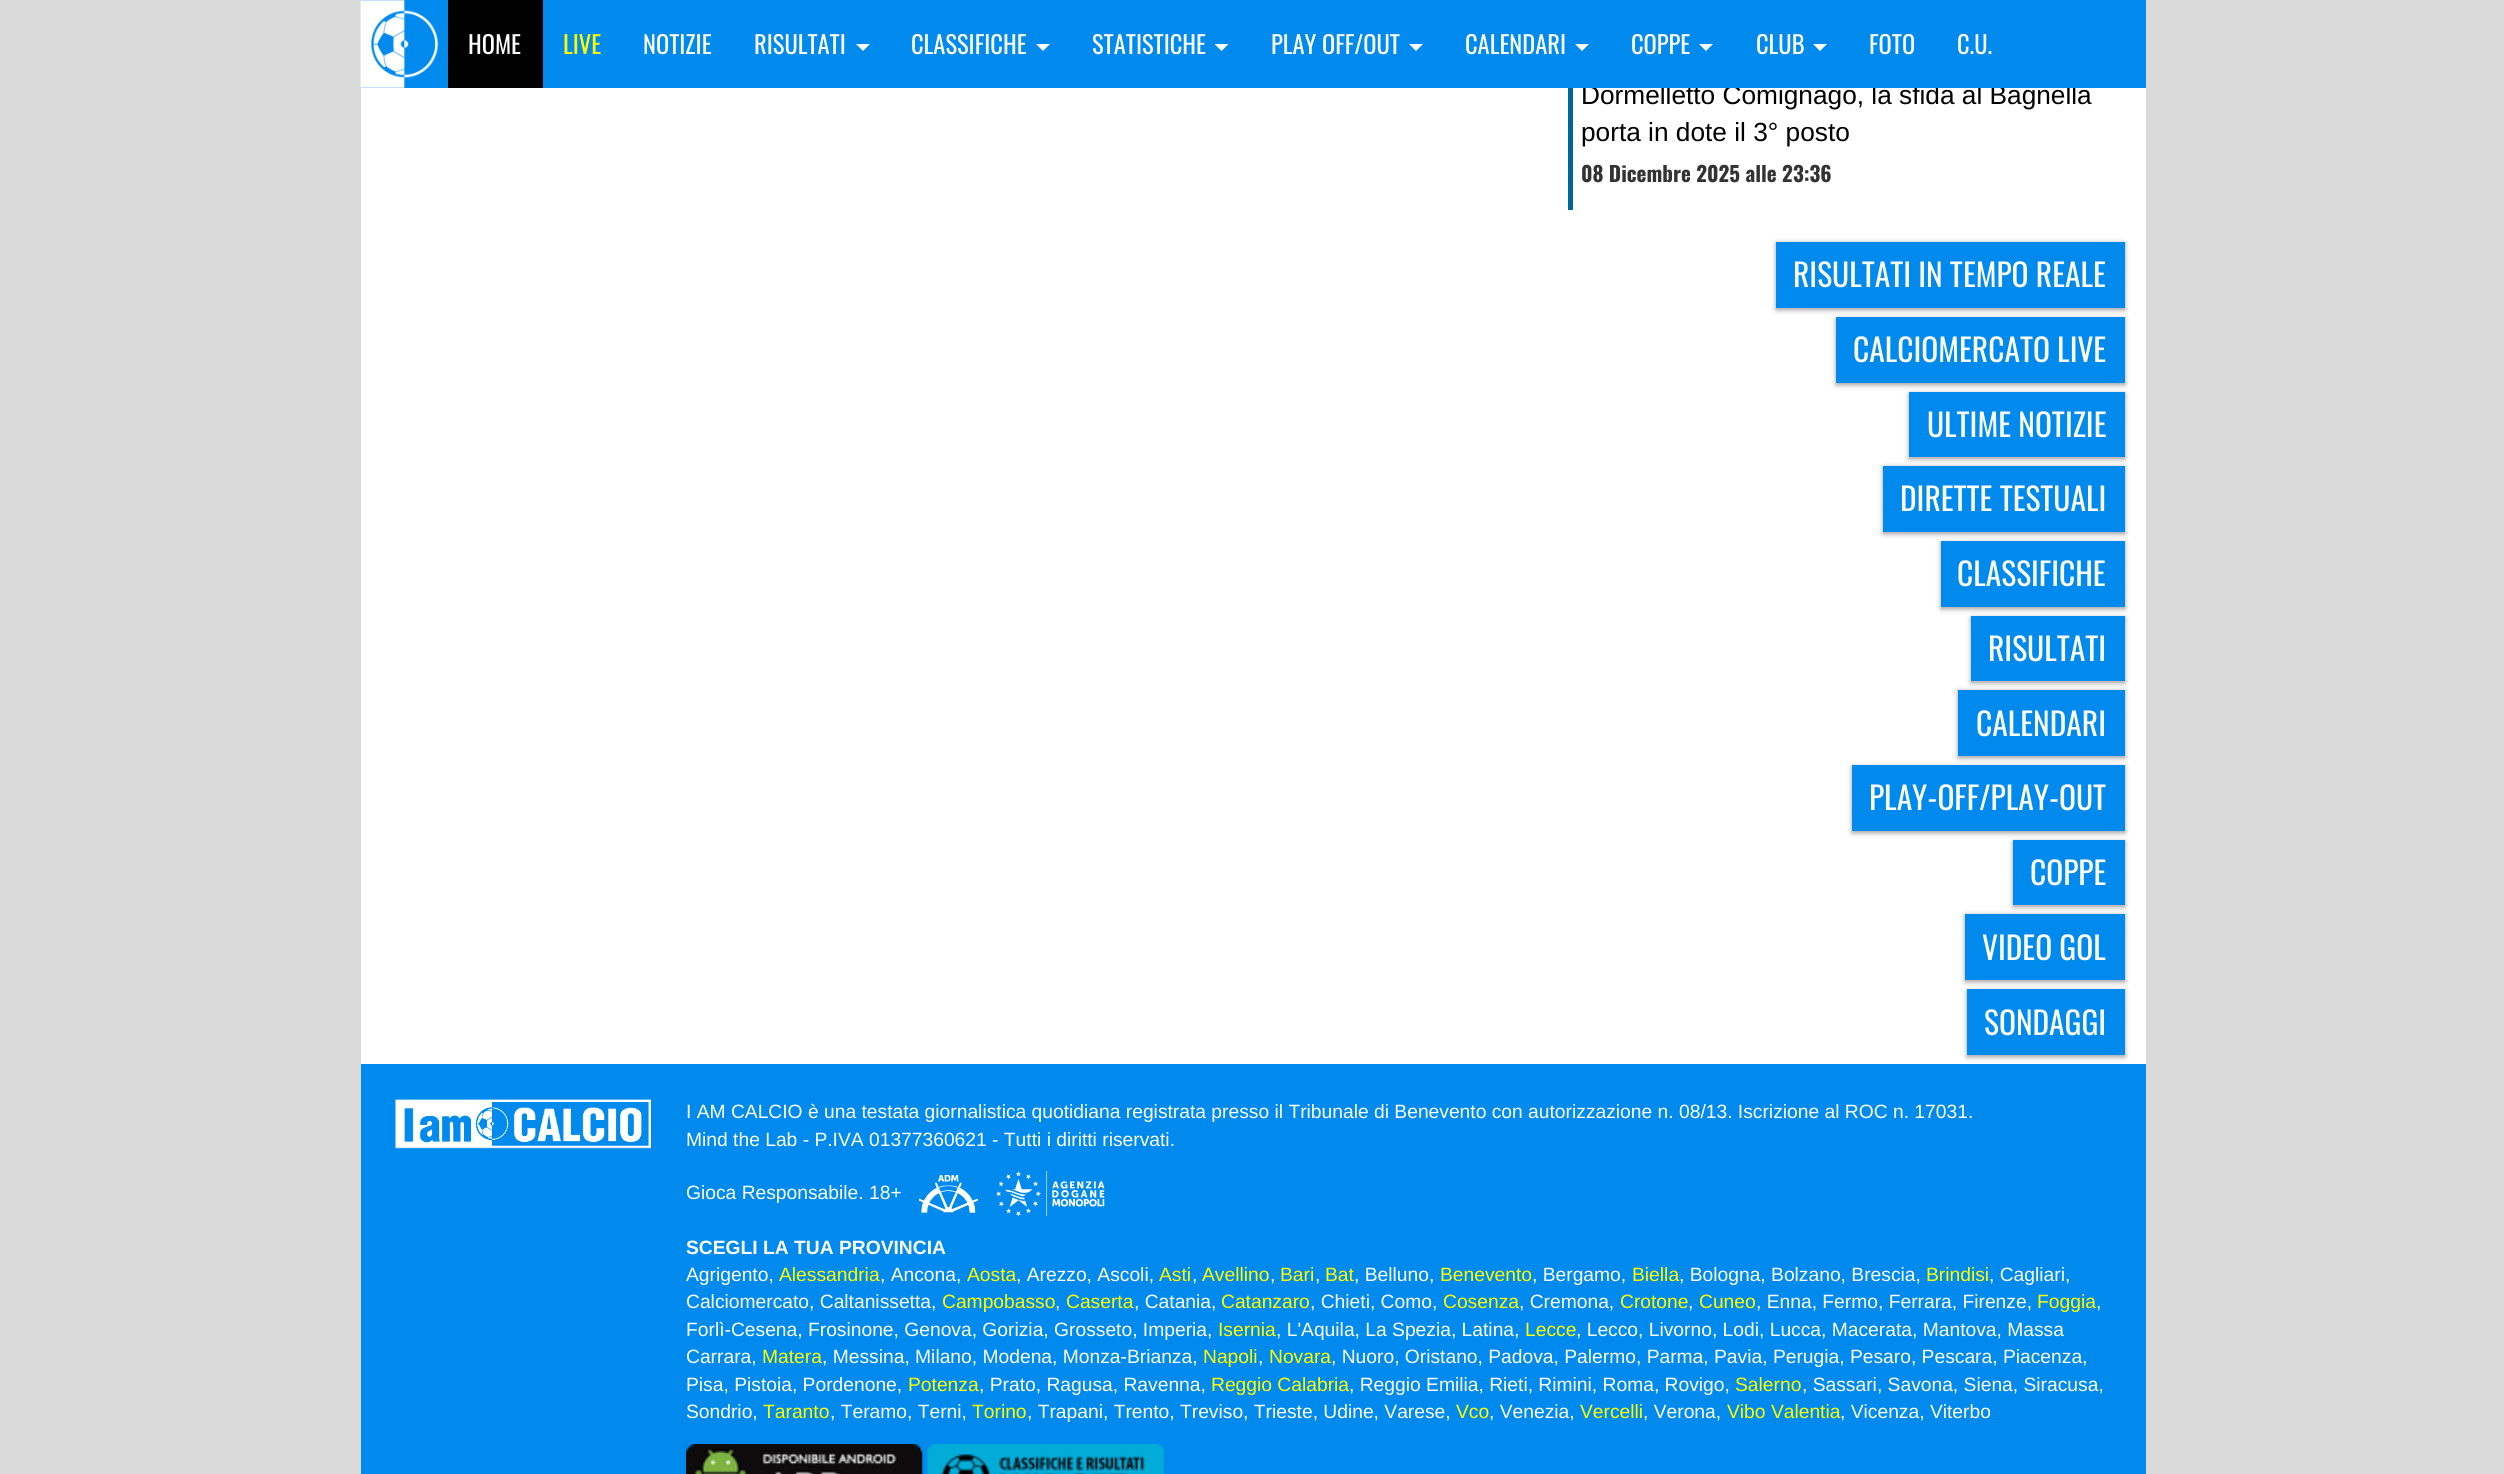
import math
import cairo


def round_path(ctx, x, y, w, h, r):
	ctx.new_sub_path()
	for i, (u, v) in enumerate([(x + w - r, y + h - r), (x + r, y + h - r), (x + r, y + r), (x + w - r, y + r)]):
		ctx.arc(u, v, r, i * math.pi / 2, (i + 1) * math.pi / 2)
	ctx.close_path()

def blur_box(ctx, x, y, w, h, r, blur, alpha):
	ctx.push_group_with_content(cairo.CONTENT_ALPHA)
	ctx.set_operator(cairo.OPERATOR_SOURCE)
	for i in range(15, -16, -2):
		e = blur * i / 6
		if min(w, h) + 2 * e > 0:
			ctx.set_source_rgba(0, 0, 0, alpha * math.erfc((i - 1) / 8.5) / 2)
			round_path(ctx, x - e, y - e, w + 2 * e, h + 2 * e, max(0, min(r + e + blur * .6, min(w, h) / 2 + e)))
			ctx.fill()
	ctx.mask(ctx.pop_group())

def paste(ctx, path, x, y, w, h):
	ctx.save()
	ctx.set_source_surface(cairo.ImageSurface.create_from_png(path), x, y)
	ctx.rectangle(x, y, w, h)
	ctx.fill()
	ctx.restore()

def draw(ctx):
	ctx.set_source_rgb(0.855, 0.855, 0.855)
	ctx.paint()
	ctx.set_source_rgb(1, 1, 1)
	ctx.rectangle(361, 88, 1785, 976)
	ctx.fill()
	ctx.select_font_face('Liberation Sans')
	ctx.set_font_size(26.25)
	ctx.set_source_rgb(0, 0, 0)
	ctx.move_to(1581, 104)
	ctx.show_text('Dormelletto Comignago, la sfida al Bagnella')
	ctx.set_source_rgb(0, 0.541, 0.929)
	ctx.rectangle(361, 0, 1785, 88)
	ctx.fill()
	paste(ctx, 'media/1.png', 360, 0, 79, 88)
	ctx.set_source_rgb(0, 0, 0)
	ctx.rectangle(448, 0, 95, 88)
	ctx.fill()
	ctx.select_font_face('Oswald')
	ctx.set_font_size(24.5)
	ctx.set_source_rgb(1, 1, 1)
	ctx.move_to(468, 54)
	ctx.show_text('HOME')
	ctx.set_source_rgb(1, 1, 0)
	ctx.move_to(563, 54)
	ctx.show_text('LIVE')
	ctx.set_source_rgb(1, 1, 1)
	ctx.move_to(643, 54)
	ctx.show_text('NOTIZIE')
	ctx.move_to(754, 54)
	ctx.show_text('RISULTATI')
	ctx.new_path()
	ctx.move_to(856, 44)
	ctx.line_to(870, 44)
	ctx.line_to(863, 51)
	ctx.close_path()
	ctx.fill()
	ctx.move_to(911, 54)
	ctx.show_text('CLASSIFICHE')
	ctx.new_path()
	ctx.move_to(1036, 44)
	ctx.line_to(1050, 44)
	ctx.line_to(1043, 51)
	ctx.close_path()
	ctx.fill()
	ctx.move_to(1092, 54)
	ctx.show_text('STATISTICHE')
	ctx.new_path()
	ctx.move_to(1214.5, 44)
	ctx.line_to(1228.5, 44)
	ctx.line_to(1221.5, 51)
	ctx.close_path()
	ctx.fill()
	ctx.move_to(1271, 54)
	ctx.show_text('PLAY OFF/OUT')
	ctx.new_path()
	ctx.move_to(1409, 44)
	ctx.line_to(1423, 44)
	ctx.line_to(1416, 51)
	ctx.close_path()
	ctx.fill()
	ctx.move_to(1465, 54)
	ctx.show_text('CALENDARI')
	ctx.new_path()
	ctx.move_to(1575, 44)
	ctx.line_to(1589, 44)
	ctx.line_to(1582, 51)
	ctx.close_path()
	ctx.fill()
	ctx.move_to(1631, 54)
	ctx.show_text('COPPE')
	ctx.new_path()
	ctx.move_to(1699, 44)
	ctx.line_to(1713, 44)
	ctx.line_to(1706, 51)
	ctx.close_path()
	ctx.fill()
	ctx.move_to(1756, 54)
	ctx.show_text('CLUB')
	ctx.new_path()
	ctx.move_to(1813, 44)
	ctx.line_to(1827, 44)
	ctx.line_to(1820, 51)
	ctx.close_path()
	ctx.fill()
	ctx.move_to(1869, 54)
	ctx.show_text('FOTO')
	ctx.move_to(1957, 54)
	ctx.show_text('C.U.')
	ctx.set_source_rgb(0, 0.396, 0.6)
	ctx.rectangle(1568, 88, 5, 122)
	ctx.fill()
	ctx.select_font_face('Liberation Sans')
	ctx.set_font_size(26.25)
	ctx.set_source_rgb(0, 0, 0)
	ctx.move_to(1581, 141)
	ctx.show_text('porta in dote il 3° posto')
	ctx.select_font_face('Oswald', cairo.FONT_SLANT_NORMAL, cairo.FONT_WEIGHT_BOLD)
	ctx.set_font_size(21)
	ctx.set_source_rgb(0.2, 0.2, 0.2)
	ctx.move_to(1581, 182)
	ctx.show_text('08 Dicembre 2025 alle 23:36')
	ctx.set_source_rgb(0.247, 0.247, 0.247)
	blur_box(ctx, 1776, 243, 349, 67, 0, 2.5, 0.5)
	ctx.set_source_rgb(0, 0.541, 0.929)
	ctx.rectangle(1776, 242, 349, 66)
	ctx.fill()
	ctx.select_font_face('Oswald')
	ctx.set_font_size(31.5)
	ctx.set_source_rgb(1, 1, 1)
	ctx.move_to(1793, 287)
	ctx.show_text('RISULTATI IN TEMPO REALE')
	ctx.set_source_rgb(0.247, 0.247, 0.247)
	blur_box(ctx, 1836, 319, 289, 66, 0, 2.5, 0.5)
	ctx.set_source_rgb(0, 0.541, 0.929)
	ctx.rectangle(1836, 317, 289, 66)
	ctx.fill()
	ctx.set_source_rgb(1, 1, 1)
	ctx.move_to(1853, 362)
	ctx.show_text('CALCIOMERCATO LIVE')
	ctx.set_source_rgb(0.247, 0.247, 0.247)
	blur_box(ctx, 1909, 394, 216, 65, 0, 2.5, 0.5)
	ctx.set_source_rgb(0, 0.541, 0.929)
	ctx.rectangle(1909, 392, 216, 65)
	ctx.fill()
	ctx.set_source_rgb(1, 1, 1)
	ctx.move_to(1927, 437)
	ctx.show_text('ULTIME NOTIZIE')
	ctx.set_source_rgb(0.247, 0.247, 0.247)
	blur_box(ctx, 1883, 467, 242, 67, 0, 2.5, 0.5)
	ctx.set_source_rgb(0, 0.541, 0.929)
	ctx.rectangle(1883, 466, 242, 66)
	ctx.fill()
	ctx.set_source_rgb(1, 1, 1)
	ctx.move_to(1900, 511)
	ctx.show_text('DIRETTE TESTUALI')
	ctx.set_source_rgb(0.247, 0.247, 0.247)
	blur_box(ctx, 1941, 543, 184, 66, 0, 2.5, 0.5)
	ctx.set_source_rgb(0, 0.541, 0.929)
	ctx.rectangle(1941, 541, 184, 66)
	ctx.fill()
	ctx.set_source_rgb(1, 1, 1)
	ctx.move_to(1957, 586)
	ctx.show_text('CLASSIFICHE')
	ctx.set_source_rgb(0.247, 0.247, 0.247)
	blur_box(ctx, 1971, 618, 154, 65, 0, 2.5, 0.5)
	ctx.set_source_rgb(0, 0.541, 0.929)
	ctx.rectangle(1971, 616, 154, 65)
	ctx.fill()
	ctx.set_source_rgb(1, 1, 1)
	ctx.move_to(1988, 661)
	ctx.show_text('RISULTATI')
	ctx.set_source_rgb(0.247, 0.247, 0.247)
	blur_box(ctx, 1958, 691, 167, 67, 0, 2.5, 0.5)
	ctx.set_source_rgb(0, 0.541, 0.929)
	ctx.rectangle(1958, 690, 167, 66)
	ctx.fill()
	ctx.set_source_rgb(1, 1, 1)
	ctx.move_to(1976, 736)
	ctx.show_text('CALENDARI')
	ctx.set_source_rgb(0.247, 0.247, 0.247)
	blur_box(ctx, 1852, 767, 273, 66, 0, 2.5, 0.5)
	ctx.set_source_rgb(0, 0.541, 0.929)
	ctx.rectangle(1852, 765, 273, 66)
	ctx.fill()
	ctx.set_source_rgb(1, 1, 1)
	ctx.move_to(1869, 810)
	ctx.show_text('PLAY-OFF/PLAY-OUT')
	ctx.set_source_rgb(0.247, 0.247, 0.247)
	blur_box(ctx, 2013, 842, 112, 65, 0, 2.5, 0.5)
	ctx.set_source_rgb(0, 0.541, 0.929)
	ctx.rectangle(2013, 840, 112, 65)
	ctx.fill()
	ctx.set_source_rgb(1, 1, 1)
	ctx.move_to(2030, 885)
	ctx.show_text('COPPE')
	ctx.set_source_rgb(0.247, 0.247, 0.247)
	blur_box(ctx, 1965, 915, 160, 67, 0, 2.5, 0.5)
	ctx.set_source_rgb(0, 0.541, 0.929)
	ctx.rectangle(1965, 914, 160, 66)
	ctx.fill()
	ctx.set_source_rgb(1, 1, 1)
	ctx.move_to(1982, 960)
	ctx.show_text('VIDEO GOL')
	ctx.set_source_rgb(0.247, 0.247, 0.247)
	blur_box(ctx, 1967, 991, 158, 66, 0, 2.5, 0.5)
	ctx.set_source_rgb(0, 0.541, 0.929)
	ctx.rectangle(1967, 989, 158, 66)
	ctx.fill()
	ctx.set_source_rgb(1, 1, 1)
	ctx.move_to(1984, 1035)
	ctx.show_text('SONDAGGI')
	ctx.set_source_rgb(0, 0.541, 0.929)
	ctx.rectangle(361, 1064, 1785, 410)
	ctx.fill()
	paste(ctx, 'media/2.png', 395, 1099, 256, 50)
	ctx.select_font_face('Liberation Sans')
	ctx.set_font_size(19.25)
	ctx.set_source_rgb(1, 1, 1)
	for x, y, s in [
		(686, 1118, 'I AM CALCIO è una testata giornalistica quotidiana registrata presso il Tribunale di Benevento con autorizzazione n. 08/13. Iscrizione al ROC n. 17031.'),
		(686, 1146, 'Mind the Lab - P.IVA 01377360621 - Tutti i diritti riservati.'),
		(686, 1199, 'Gioca Responsabile. 18+'),
	]:
		ctx.move_to(x, y)
		ctx.show_text(s)
	paste(ctx, 'media/3.png', 919, 1175, 59, 38)
	paste(ctx, 'media/4.png', 996, 1171, 109, 46)
	ctx.select_font_face('Liberation Sans', cairo.FONT_SLANT_NORMAL, cairo.FONT_WEIGHT_BOLD)
	ctx.move_to(686, 1254)
	ctx.show_text('SCEGLI LA TUA PROVINCIA')
	ctx.select_font_face('Liberation Sans')
	ctx.move_to(686, 1281)
	ctx.show_text('Agrigento,')
	ctx.set_source_rgb(1, 1, 0)
	ctx.move_to(779, 1281)
	ctx.show_text('Alessandria')
	ctx.set_source_rgb(1, 1, 1)
	ctx.move_to(880, 1281)
	ctx.show_text(', Ancona,')
	ctx.set_source_rgb(1, 1, 0)
	ctx.move_to(967, 1281)
	ctx.show_text('Aosta')
	ctx.set_source_rgb(1, 1, 1)
	ctx.move_to(1016, 1281)
	ctx.show_text(', Arezzo, Ascoli,')
	ctx.set_source_rgb(1, 1, 0)
	ctx.move_to(1159, 1281)
	ctx.show_text('Asti')
	ctx.set_source_rgb(1, 1, 1)
	ctx.move_to(1192, 1281)
	ctx.show_text(',')
	ctx.set_source_rgb(1, 1, 0)
	ctx.move_to(1202, 1281)
	ctx.show_text('Avellino')
	ctx.set_source_rgb(1, 1, 1)
	ctx.move_to(1270, 1281)
	ctx.show_text(',')
	ctx.set_source_rgb(1, 1, 0)
	ctx.move_to(1280, 1281)
	ctx.show_text('Bari')
	ctx.set_source_rgb(1, 1, 1)
	ctx.move_to(1315, 1281)
	ctx.show_text(',')
	ctx.set_source_rgb(1, 1, 0)
	ctx.move_to(1325, 1281)
	ctx.show_text('Bat')
	ctx.set_source_rgb(1, 1, 1)
	ctx.move_to(1354, 1281)
	ctx.show_text(', Belluno,')
	ctx.set_source_rgb(1, 1, 0)
	ctx.move_to(1440, 1281)
	ctx.show_text('Benevento')
	ctx.set_source_rgb(1, 1, 1)
	ctx.move_to(1532, 1281)
	ctx.show_text(', Bergamo,')
	ctx.set_source_rgb(1, 1, 0)
	ctx.move_to(1632, 1281)
	ctx.show_text('Biella')
	ctx.set_source_rgb(1, 1, 1)
	ctx.move_to(1679, 1281)
	ctx.show_text(', Bologna, Bolzano, Brescia,')
	ctx.set_source_rgb(1, 1, 0)
	ctx.move_to(1926, 1281)
	ctx.show_text('Brindisi')
	ctx.set_source_rgb(1, 1, 1)
	ctx.move_to(1989, 1281)
	ctx.show_text(', Cagliari,')
	ctx.move_to(686, 1308)
	ctx.show_text('Calciomercato, Caltanissetta,')
	ctx.set_source_rgb(1, 1, 0)
	ctx.move_to(942, 1308)
	ctx.show_text('Campobasso')
	ctx.set_source_rgb(1, 1, 1)
	ctx.move_to(1055, 1308)
	ctx.show_text(',')
	ctx.set_source_rgb(1, 1, 0)
	ctx.move_to(1066, 1308)
	ctx.show_text('Caserta')
	ctx.set_source_rgb(1, 1, 1)
	ctx.move_to(1134, 1308)
	ctx.show_text(', Catania,')
	ctx.set_source_rgb(1, 1, 0)
	ctx.move_to(1221, 1308)
	ctx.show_text('Catanzaro')
	ctx.set_source_rgb(1, 1, 1)
	ctx.move_to(1310, 1308)
	ctx.show_text(', Chieti, Como,')
	ctx.set_source_rgb(1, 1, 0)
	ctx.move_to(1443, 1308)
	ctx.show_text('Cosenza')
	ctx.set_source_rgb(1, 1, 1)
	ctx.move_to(1519, 1308)
	ctx.show_text(', Cremona,')
	ctx.set_source_rgb(1, 1, 0)
	ctx.move_to(1620, 1308)
	ctx.show_text('Crotone')
	ctx.set_source_rgb(1, 1, 1)
	ctx.move_to(1688, 1308)
	ctx.show_text(',')
	ctx.set_source_rgb(1, 1, 0)
	ctx.move_to(1699, 1308)
	ctx.show_text('Cuneo')
	ctx.set_source_rgb(1, 1, 1)
	ctx.move_to(1756, 1308)
	ctx.show_text(', Enna, Fermo, Ferrara, Firenze,')
	ctx.set_source_rgb(1, 1, 0)
	ctx.move_to(2037, 1308)
	ctx.show_text('Foggia')
	ctx.set_source_rgb(1, 1, 1)
	ctx.move_to(2096, 1308)
	ctx.show_text(',')
	ctx.move_to(686, 1336)
	ctx.show_text('Forlì-Cesena, Frosinone, Genova, Gorizia, Grosseto, Imperia,')
	ctx.set_source_rgb(1, 1, 0)
	ctx.move_to(1218, 1336)
	ctx.show_text('Isernia')
	ctx.set_source_rgb(1, 1, 1)
	ctx.move_to(1276, 1336)
	ctx.show_text(', L\'Aquila, La Spezia, Latina,')
	ctx.set_source_rgb(1, 1, 0)
	ctx.move_to(1525, 1336)
	ctx.show_text('Lecce')
	ctx.set_source_rgb(1, 1, 1)
	ctx.move_to(1576, 1336)
	ctx.show_text(', Lecco, Livorno, Lodi, Lucca, Macerata, Mantova, Massa')
	ctx.move_to(686, 1363)
	ctx.show_text('Carrara,')
	ctx.set_source_rgb(1, 1, 0)
	ctx.move_to(762, 1363)
	ctx.show_text('Matera')
	ctx.set_source_rgb(1, 1, 1)
	ctx.move_to(822, 1363)
	ctx.show_text(', Messina, Milano, Modena, Monza-Brianza,')
	ctx.set_source_rgb(1, 1, 0)
	ctx.move_to(1203, 1363)
	ctx.show_text('Napoli')
	ctx.set_source_rgb(1, 1, 1)
	ctx.move_to(1258, 1363)
	ctx.show_text(',')
	ctx.set_source_rgb(1, 1, 0)
	ctx.move_to(1269, 1363)
	ctx.show_text('Novara')
	ctx.set_source_rgb(1, 1, 1)
	ctx.move_to(1331, 1363)
	ctx.show_text(', Nuoro, Oristano, Padova, Palermo, Parma, Pavia, Perugia, Pesaro, Pescara, Piacenza,')
	ctx.move_to(686, 1391)
	ctx.show_text('Pisa, Pistoia, Pordenone,')
	ctx.set_source_rgb(1, 1, 0)
	ctx.move_to(908, 1391)
	ctx.show_text('Potenza')
	ctx.set_source_rgb(1, 1, 1)
	ctx.move_to(979, 1391)
	ctx.show_text(', Prato, Ragusa, Ravenna,')
	ctx.set_source_rgb(1, 1, 0)
	ctx.move_to(1211, 1391)
	ctx.show_text('Reggio Calabria')
	ctx.set_source_rgb(1, 1, 1)
	ctx.move_to(1349, 1391)
	ctx.show_text(', Reggio Emilia, Rieti, Rimini, Roma, Rovigo,')
	ctx.set_source_rgb(1, 1, 0)
	ctx.move_to(1735, 1391)
	ctx.show_text('Salerno')
	ctx.set_source_rgb(1, 1, 1)
	ctx.move_to(1802, 1391)
	ctx.show_text(', Sassari, Savona, Siena, Siracusa,')
	ctx.move_to(686, 1418)
	ctx.show_text('Sondrio,')
	ctx.set_source_rgb(1, 1, 0)
	ctx.move_to(763, 1418)
	ctx.show_text('Taranto')
	ctx.set_source_rgb(1, 1, 1)
	ctx.move_to(830, 1418)
	ctx.show_text(', Teramo, Terni,')
	ctx.set_source_rgb(1, 1, 0)
	ctx.move_to(972, 1418)
	ctx.show_text('Torino')
	ctx.set_source_rgb(1, 1, 1)
	ctx.move_to(1027, 1418)
	ctx.show_text(', Trapani, Trento, Treviso, Trieste, Udine, Varese,')
	ctx.set_source_rgb(1, 1, 0)
	ctx.move_to(1456, 1418)
	ctx.show_text('Vco')
	ctx.set_source_rgb(1, 1, 1)
	ctx.move_to(1489, 1418)
	ctx.show_text(', Venezia,')
	ctx.set_source_rgb(1, 1, 0)
	ctx.move_to(1580, 1418)
	ctx.show_text('Vercelli')
	ctx.set_source_rgb(1, 1, 1)
	ctx.move_to(1643, 1418)
	ctx.show_text(', Verona,')
	ctx.set_source_rgb(1, 1, 0)
	ctx.move_to(1727, 1418)
	ctx.show_text('Vibo Valentia')
	ctx.set_source_rgb(1, 1, 1)
	ctx.move_to(1840, 1418)
	ctx.show_text(', Vicenza, Viterbo')
	paste(ctx, 'media/5.png', 686, 1444, 237, 30)
	paste(ctx, 'media/6.png', 927, 1444, 237, 30)


surface = cairo.ImageSurface(cairo.FORMAT_RGB24, 2504, 1474)
ctx = cairo.Context(surface)
options = cairo.FontOptions()
options.set_hint_metrics(cairo.HINT_METRICS_OFF)
options.set_hint_style(cairo.HINT_STYLE_NONE)
ctx.set_font_options(options)
ctx.set_miter_limit(4)
draw(ctx)
surface.write_to_png('image.png')
